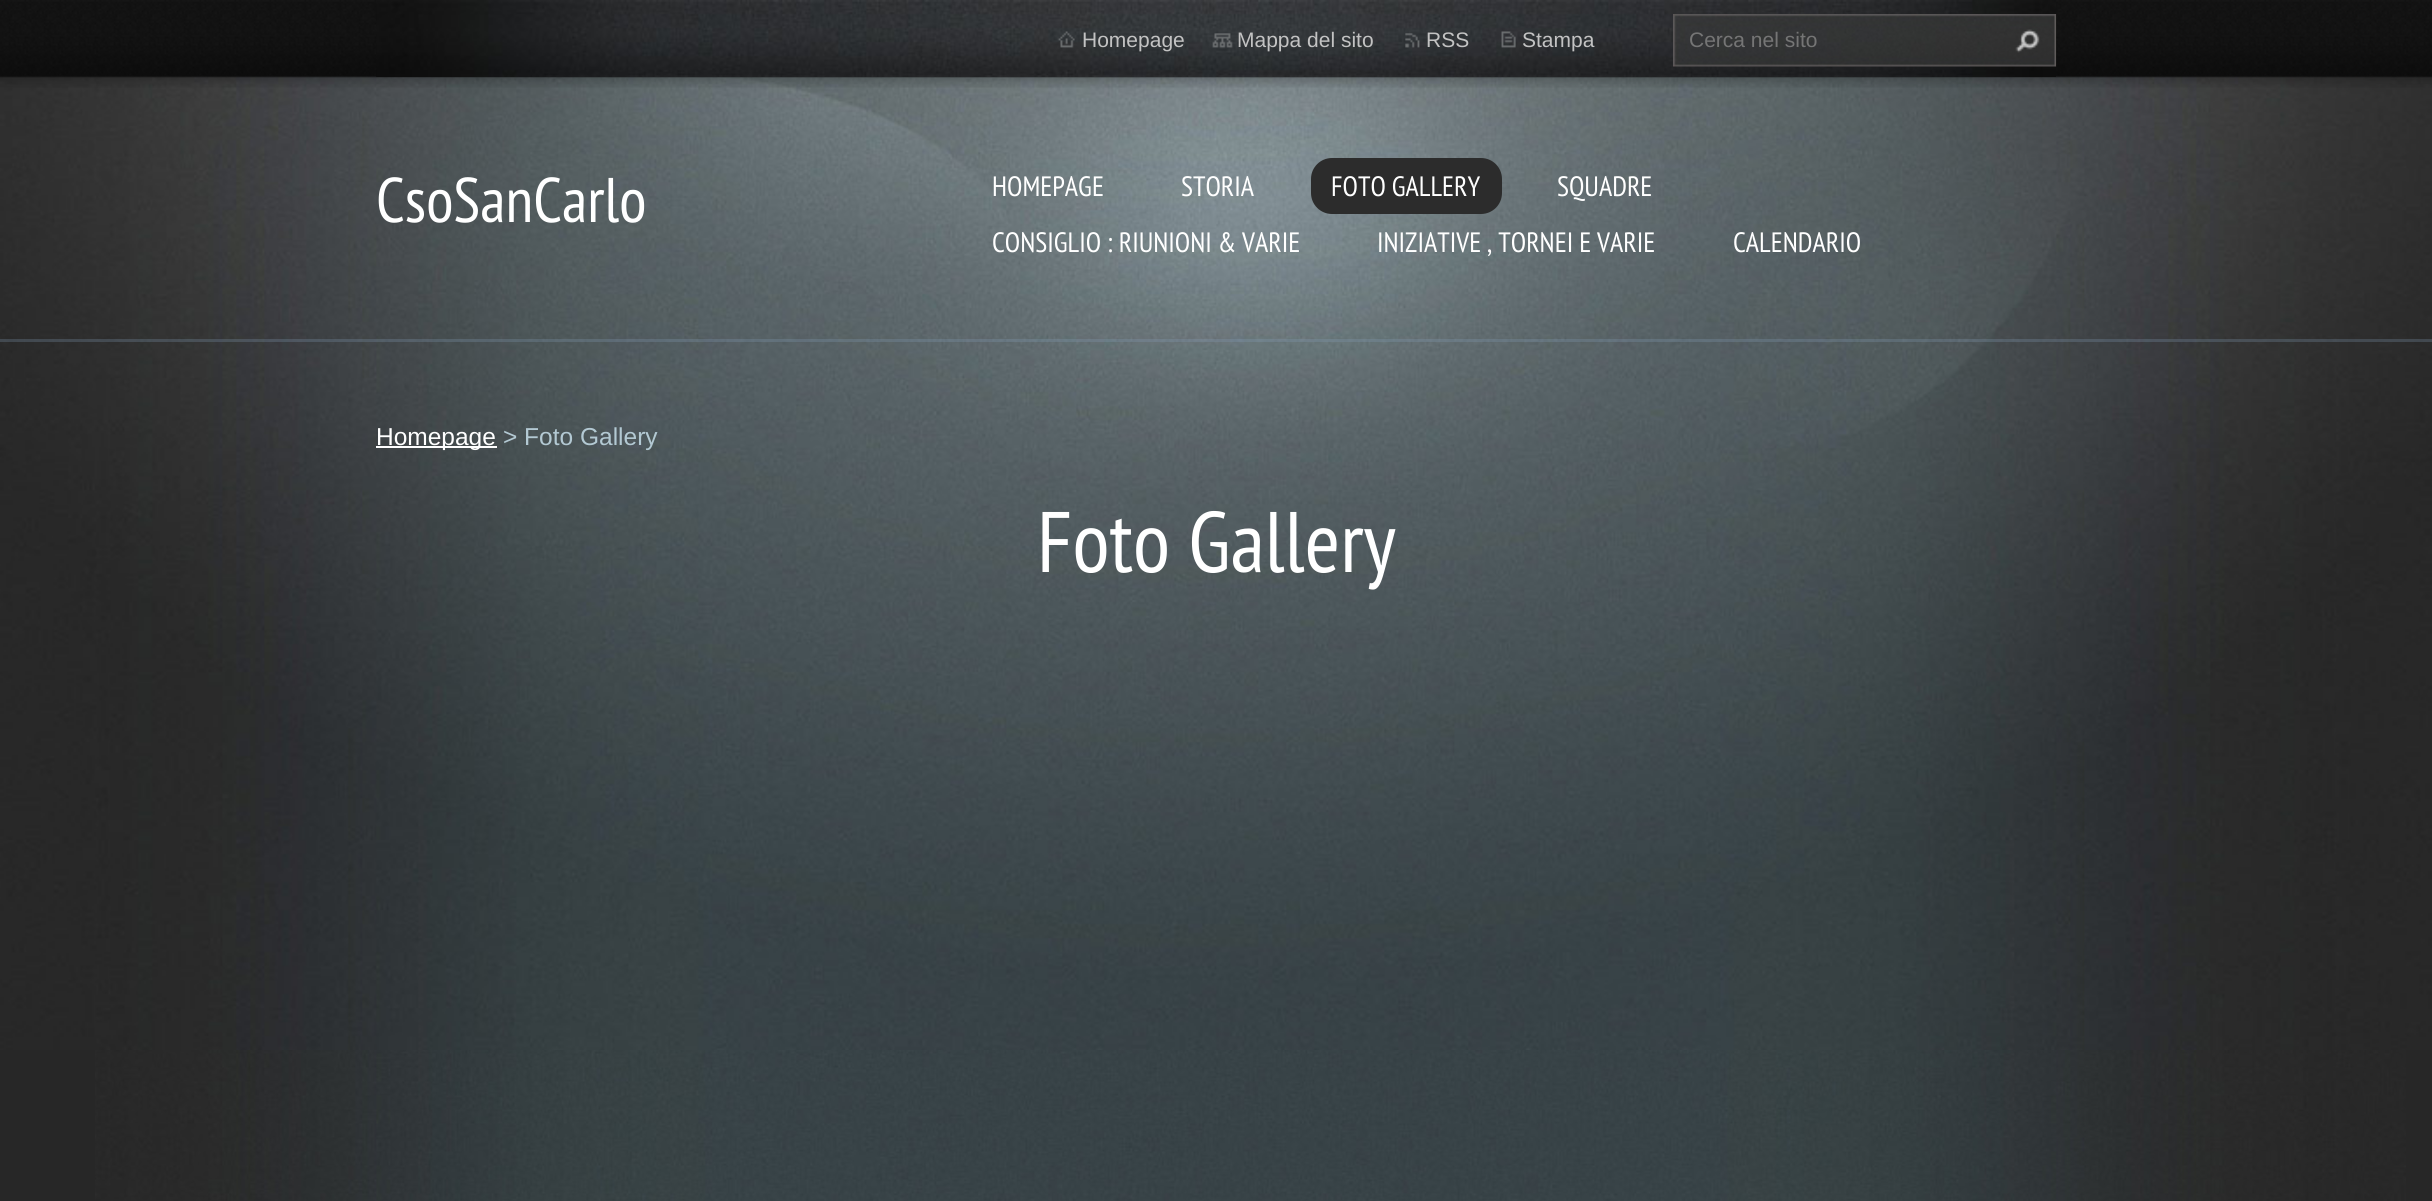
import math
import cairo


def round_path(ctx, x, y, w, h, r):
	ctx.new_sub_path()
	for i, (u, v) in enumerate([(x + w - r, y + h - r), (x + r, y + h - r), (x + r, y + r), (x + w - r, y + r)]):
		ctx.arc(u, v, r, i * math.pi / 2, (i + 1) * math.pi / 2)
	ctx.close_path()

def paste(ctx, path, x, y, w, h):
	ctx.save()
	ctx.set_source_surface(cairo.ImageSurface.create_from_png(path), x, y)
	ctx.rectangle(x, y, w, h)
	ctx.fill()
	ctx.restore()

def draw(ctx):
	ctx.set_source_rgb(0.153, 0.153, 0.153)
	ctx.paint()
	paste(ctx, 'media/1.png', 95, 1050, 2311, 151)
	paste(ctx, 'media/2.png', 0, 76, 2432, 974)
	ctx.set_source_rgba(0.514, 0.62, 0.725, 0.26)
	ctx.rectangle(0, 339, 2432, 3)
	ctx.fill()
	paste(ctx, 'media/3.png', 0, 0, 2432, 88)
	paste(ctx, 'media/4.png', 376, 0, 1680, 77)
	paste(ctx, 'media/5.png', 1058, 31, 17, 17)
	ctx.select_font_face('Liberation Sans')
	ctx.set_font_size(21)
	ctx.set_source_rgb(0.765, 0.765, 0.765)
	ctx.move_to(1082, 47)
	ctx.show_text('Homepage')
	paste(ctx, 'media/6.png', 1212, 33, 21, 15)
	ctx.move_to(1237, 47)
	ctx.show_text('Mappa del sito')
	paste(ctx, 'media/7.png', 1405, 33, 15, 15)
	ctx.move_to(1426, 47)
	ctx.show_text('RSS')
	paste(ctx, 'media/8.png', 1501, 31, 15, 17)
	ctx.move_to(1522, 47)
	ctx.show_text('Stampa')
	paste(ctx, 'media/9.png', 1673, 14, 384, 53)
	ctx.set_source_rgb(0.459, 0.459, 0.459)
	ctx.move_to(1689, 47)
	ctx.show_text('Cerca nel sito')
	paste(ctx, 'media/10.png', 2015, 29, 25, 24)
	ctx.select_font_face('PT Sans Narrow')
	ctx.set_font_size(63)
	ctx.set_source_rgb(1, 1, 1)
	ctx.move_to(376, 222)
	ctx.show_text('CsoSanCarlo')
	ctx.set_font_size(28)
	ctx.move_to(992, 196)
	ctx.show_text('HOMEPAGE')
	ctx.move_to(1181, 196)
	ctx.show_text('STORIA')
	ctx.set_source_rgb(0.173, 0.173, 0.173)
	round_path(ctx, 1311, 158, 191, 56, 21)
	ctx.fill()
	ctx.set_source_rgb(1, 1, 1)
	for x, y, s in [
		(1331, 196, 'FOTO GALLERY'),
		(1557, 196, 'SQUADRE'),
		(992, 252, 'CONSIGLIO : RIUNIONI & VARIE'),
		(1377, 252, 'INIZIATIVE , TORNEI E VARIE'),
		(1733, 252, 'CALENDARIO'),
	]:
		ctx.move_to(x, y)
		ctx.show_text(s)
	ctx.rectangle(376, 446, 121, 2)
	ctx.fill()
	ctx.select_font_face('Liberation Sans')
	ctx.set_font_size(24.5)
	ctx.move_to(376, 445)
	ctx.show_text('Homepage')
	ctx.set_source_rgb(0.702, 0.788, 0.827)
	ctx.move_to(503, 445)
	ctx.show_text('> Foto Gallery')
	ctx.select_font_face('PT Sans Narrow')
	ctx.set_font_size(85.75)
	ctx.set_source_rgb(1, 1, 1)
	ctx.move_to(1037, 572)
	ctx.show_text('Foto Gallery')


surface = cairo.ImageSurface(cairo.FORMAT_RGB24, 2432, 1201)
ctx = cairo.Context(surface)
options = cairo.FontOptions()
options.set_hint_metrics(cairo.HINT_METRICS_OFF)
options.set_hint_style(cairo.HINT_STYLE_NONE)
ctx.set_font_options(options)
ctx.set_miter_limit(4)
draw(ctx)
surface.write_to_png('image.png')
